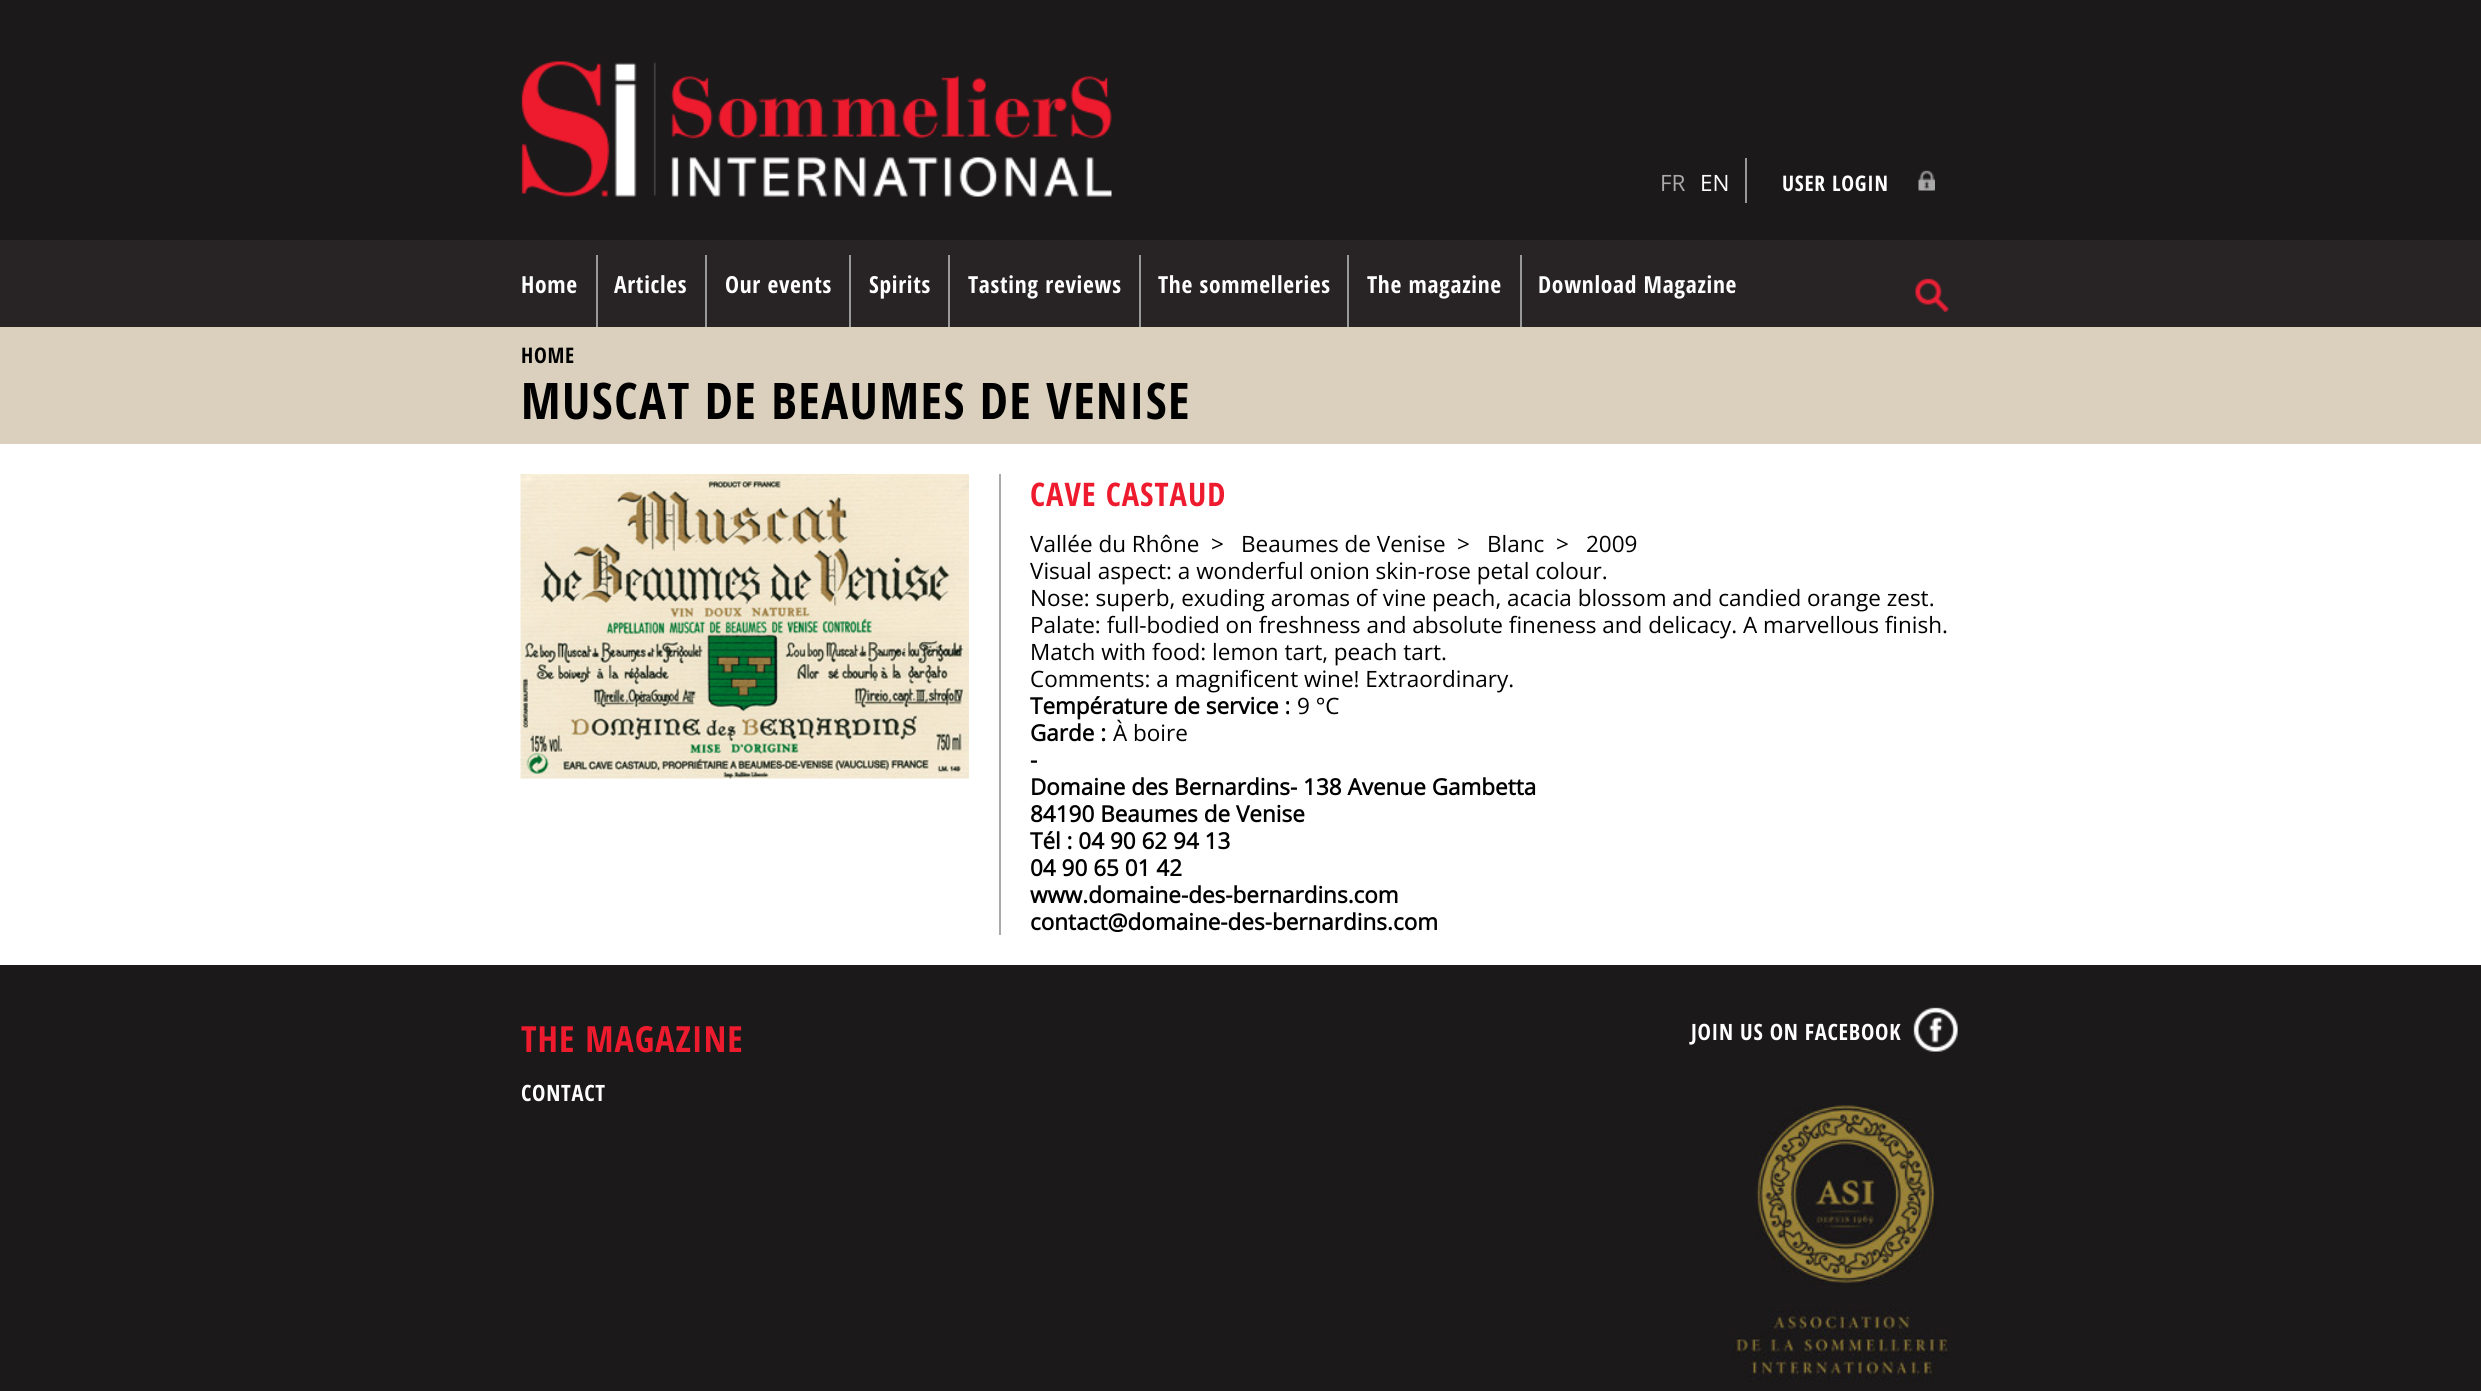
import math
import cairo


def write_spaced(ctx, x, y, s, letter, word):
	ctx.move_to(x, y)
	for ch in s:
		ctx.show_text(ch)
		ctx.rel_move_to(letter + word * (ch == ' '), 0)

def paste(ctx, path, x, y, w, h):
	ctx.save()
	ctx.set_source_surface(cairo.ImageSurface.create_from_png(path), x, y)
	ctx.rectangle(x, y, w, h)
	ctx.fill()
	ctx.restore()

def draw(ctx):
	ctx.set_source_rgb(1, 1, 1)
	ctx.paint()
	ctx.set_source_rgb(0.106, 0.098, 0.102)
	ctx.rectangle(0, 0, 2481, 240)
	ctx.fill()
	paste(ctx, 'media/1.png', 521, 61, 591, 136)
	ctx.select_font_face('Open Sans')
	ctx.set_font_size(22.5)
	ctx.set_source_rgb(0.667, 0.667, 0.667)
	ctx.move_to(1660, 191)
	ctx.show_text('FR')
	ctx.set_source_rgb(1, 1, 1)
	ctx.move_to(1700, 191)
	ctx.show_text('EN')
	paste(ctx, 'media/2.png', 1918, 170, 17, 21)
	ctx.set_source_rgb(0.6, 0.6, 0.6)
	ctx.rectangle(1745, 158, 2, 45)
	ctx.fill()
	ctx.select_font_face('Open Sans Condensed', cairo.FONT_SLANT_NORMAL, cairo.FONT_WEIGHT_BOLD)
	ctx.set_font_size(21.5)
	ctx.set_source_rgb(1, 1, 1)
	write_spaced(ctx, 1782, 191, 'USER LOGIN', 0.75, 0)
	ctx.set_source_rgb(0.157, 0.141, 0.145)
	ctx.rectangle(0, 240, 2481, 87)
	ctx.fill()
	ctx.set_source_rgb(0.6, 0.6, 0.6)
	ctx.rectangle(596, 255, 2, 72)
	ctx.fill()
	ctx.set_font_size(23.5)
	ctx.set_source_rgb(1, 1, 1)
	write_spaced(ctx, 521, 293, 'Home', 0.7, 0)
	ctx.set_source_rgb(0.6, 0.6, 0.6)
	ctx.rectangle(705, 255, 2, 72)
	ctx.fill()
	ctx.set_source_rgb(1, 1, 1)
	write_spaced(ctx, 614, 293, 'Articles', 0.7, 0)
	ctx.set_source_rgb(0.6, 0.6, 0.6)
	ctx.rectangle(849, 255, 2, 72)
	ctx.fill()
	ctx.set_source_rgb(1, 1, 1)
	write_spaced(ctx, 725, 293, 'Our events', 0.7, 0)
	ctx.set_source_rgb(0.6, 0.6, 0.6)
	ctx.rectangle(948, 255, 2, 72)
	ctx.fill()
	ctx.set_source_rgb(1, 1, 1)
	write_spaced(ctx, 869, 293, 'Spirits', 0.7, 0)
	ctx.set_source_rgb(0.6, 0.6, 0.6)
	ctx.rectangle(1139, 255, 2, 72)
	ctx.fill()
	ctx.set_source_rgb(1, 1, 1)
	write_spaced(ctx, 968, 293, 'Tasting reviews', 0.7, 0)
	ctx.set_source_rgb(0.6, 0.6, 0.6)
	ctx.rectangle(1347, 255, 2, 72)
	ctx.fill()
	ctx.set_source_rgb(1, 1, 1)
	write_spaced(ctx, 1158, 293, 'The sommelleries', 0.7, 0)
	ctx.set_source_rgb(0.6, 0.6, 0.6)
	ctx.rectangle(1520, 255, 2, 72)
	ctx.fill()
	ctx.set_source_rgb(1, 1, 1)
	write_spaced(ctx, 1367, 293, 'The magazine', 0.7, 0)
	write_spaced(ctx, 1538, 293, 'Download Magazine', 0.7, 0)
	paste(ctx, 'media/3.png', 1915, 278, 34, 34)
	ctx.set_source_rgb(0.859, 0.816, 0.745)
	ctx.rectangle(0, 327, 2481, 117)
	ctx.fill()
	ctx.set_font_size(21.5)
	ctx.set_source_rgb(0, 0, 0)
	write_spaced(ctx, 521, 363, 'HOME', 0.75, 0)
	ctx.set_font_size(50.4)
	write_spaced(ctx, 521, 419, 'MUSCAT DE BEAUMES DE VENISE', 1.5, 0)
	ctx.set_source_rgb(0.667, 0.667, 0.667)
	ctx.rectangle(999, 474, 2, 461)
	ctx.fill()
	paste(ctx, 'media/4.png', 520, 474, 449, 305)
	ctx.set_font_size(32.5)
	ctx.set_source_rgb(0.933, 0.106, 0.18)
	write_spaced(ctx, 1030, 506, 'CAVE CASTAUD', 1, 0)
	ctx.select_font_face('Open Sans')
	ctx.set_font_size(22.5)
	ctx.set_source_rgb(0, 0, 0)
	for x, y, s in [
		(1030, 552, 'Vallée du Rhône'),
		(1211, 552, '>'),
		(1241, 552, 'Beaumes de Venise'),
		(1457, 552, '>'),
		(1487, 552, 'Blanc'),
		(1556, 552, '>'),
		(1586, 552, '2009'),
		(1030, 579, 'Visual aspect: a wonderful onion skin-rose petal colour.'),
		(1030, 606, 'Nose: superb, exuding aromas of vine peach, acacia blossom and candied orange zest.'),
		(1030, 633, 'Palate: full-bodied on freshness and absolute fineness and delicacy. A marvellous finish.'),
		(1030, 660, 'Match with food: lemon tart, peach tart.'),
		(1030, 687, 'Comments: a magnificent wine! Extraordinary.'),
	]:
		ctx.move_to(x, y)
		ctx.show_text(s)
	ctx.select_font_face('Open Sans', cairo.FONT_SLANT_NORMAL, cairo.FONT_WEIGHT_BOLD)
	ctx.move_to(1030, 714)
	ctx.show_text('Température de service :')
	ctx.select_font_face('Open Sans')
	ctx.move_to(1297, 714)
	ctx.show_text('9 °C')
	ctx.select_font_face('Open Sans', cairo.FONT_SLANT_NORMAL, cairo.FONT_WEIGHT_BOLD)
	ctx.move_to(1030, 741)
	ctx.show_text('Garde :')
	ctx.select_font_face('Open Sans')
	ctx.move_to(1113, 741)
	ctx.show_text('À boire')
	ctx.select_font_face('Open Sans', cairo.FONT_SLANT_NORMAL, cairo.FONT_WEIGHT_BOLD)
	for x, y, s in [
		(1030, 768, '-'),
		(1030, 795, 'Domaine des Bernardins- 138 Avenue Gambetta'),
		(1030, 822, '84190 Beaumes de Venise'),
		(1030, 849, 'Tél : 04 90 62 94 13'),
		(1030, 876, '04 90 65 01 42'),
		(1030, 903, 'www.domaine-des-bernardins.com'),
		(1030, 930, 'contact@domaine-des-bernardins.com'),
	]:
		ctx.move_to(x, y)
		ctx.show_text(s)
	ctx.set_source_rgb(0.106, 0.098, 0.102)
	ctx.rectangle(0, 965, 2481, 426)
	ctx.fill()
	ctx.select_font_face('Open Sans Condensed', cairo.FONT_SLANT_NORMAL, cairo.FONT_WEIGHT_BOLD)
	ctx.set_font_size(36)
	ctx.set_source_rgb(0.933, 0.106, 0.18)
	write_spaced(ctx, 521, 1052, 'THE MAGAZINE', 1, 0)
	ctx.set_font_size(22.5)
	ctx.set_source_rgb(1, 1, 1)
	write_spaced(ctx, 521, 1101, 'CONTACT', 0.7, 0)
	write_spaced(ctx, 1691, 1040, 'JOIN US ON FACEBOOK', 0.7, 0)
	paste(ctx, 'media/5.png', 1913, 1007, 45, 45)
	paste(ctx, 'media/6.png', 1732, 1105, 217, 277)


surface = cairo.ImageSurface(cairo.FORMAT_RGB24, 2481, 1391)
ctx = cairo.Context(surface)
options = cairo.FontOptions()
options.set_hint_metrics(cairo.HINT_METRICS_OFF)
options.set_hint_style(cairo.HINT_STYLE_NONE)
ctx.set_font_options(options)
ctx.set_miter_limit(4)
draw(ctx)
surface.write_to_png('image.png')
